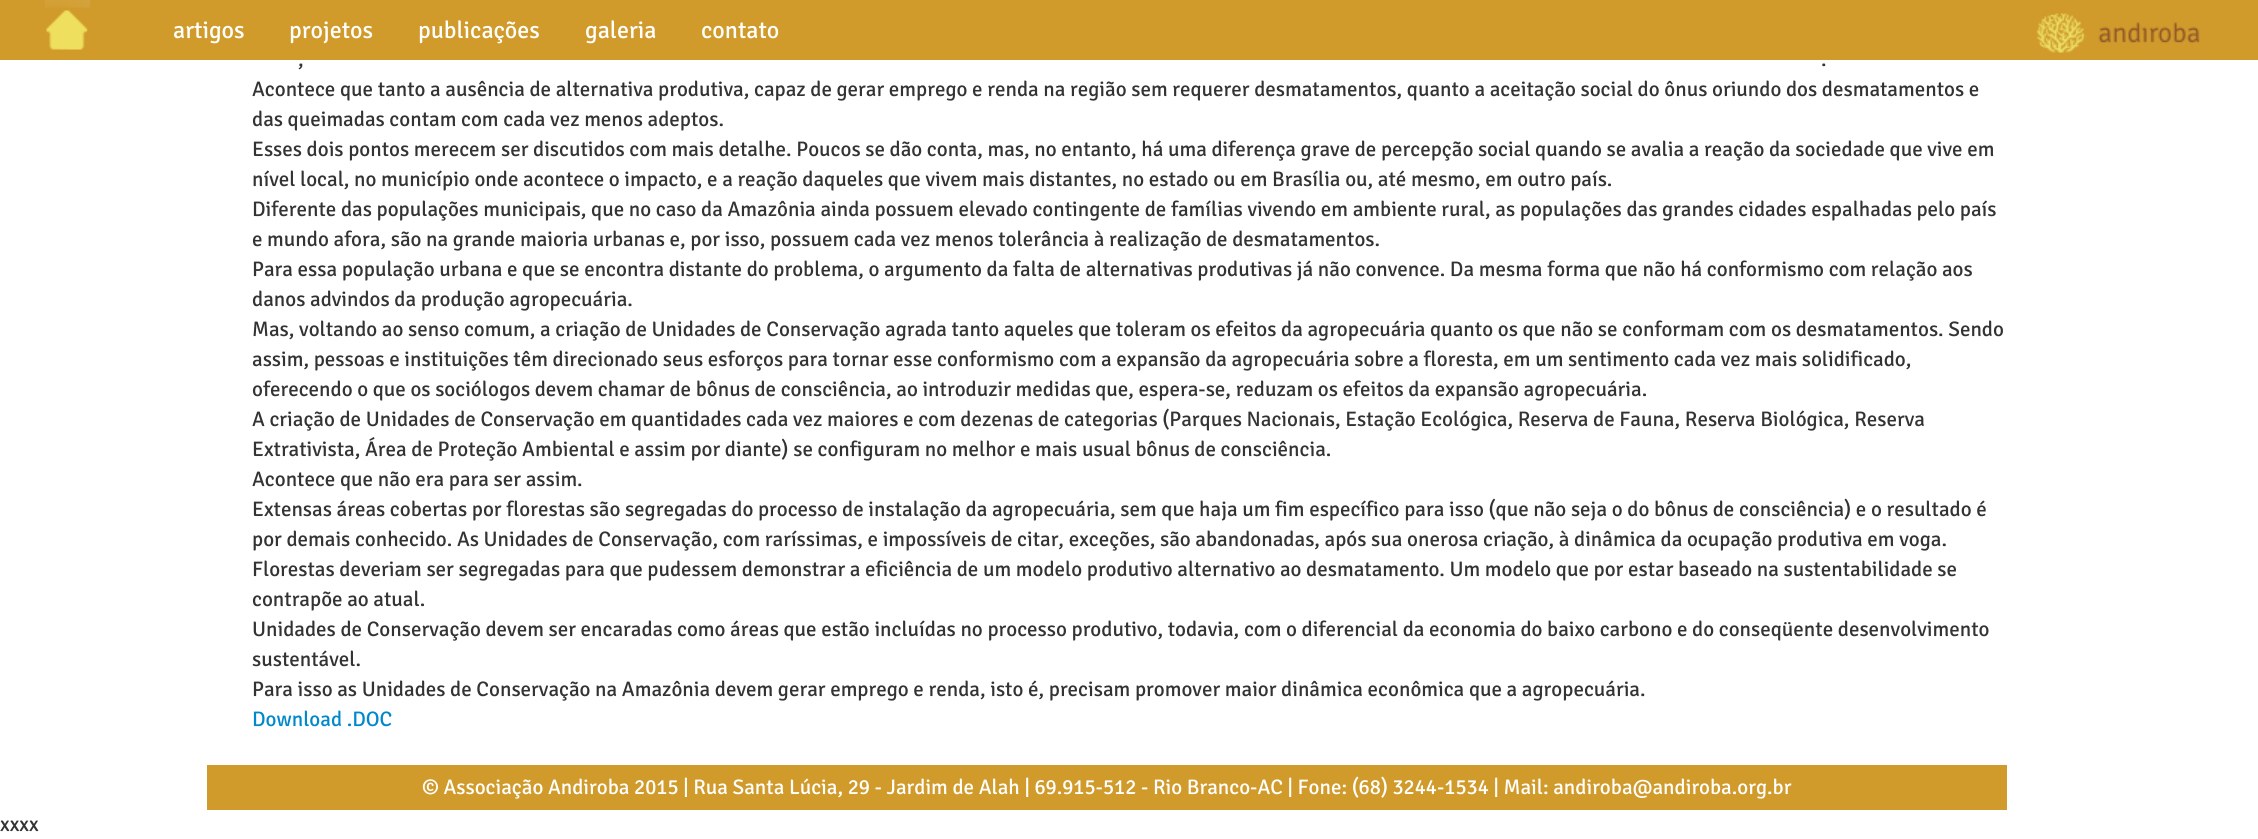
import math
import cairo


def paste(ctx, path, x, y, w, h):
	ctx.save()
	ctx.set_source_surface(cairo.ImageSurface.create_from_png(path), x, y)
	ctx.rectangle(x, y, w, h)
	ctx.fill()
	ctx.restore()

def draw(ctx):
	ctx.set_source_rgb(1, 1, 1)
	ctx.paint()
	ctx.set_source_rgb(0.82, 0.608, 0.173)
	ctx.rectangle(0, 0, 2258, 60)
	ctx.fill()
	paste(ctx, 'media/1.png', 45, 0, 45, 50)
	ctx.select_font_face('Signika')
	ctx.set_font_size(24)
	ctx.set_source_rgb(1, 1, 1)
	for x, y, s in [
		(173, 38, 'artigos'),
		(289, 38, 'projetos'),
		(418, 38, 'publicações'),
		(585, 38, 'galeria'),
		(701, 38, 'contato'),
	]:
		ctx.move_to(x, y)
		ctx.show_text(s)
	paste(ctx, 'media/2.png', 2036, 13, 164, 40)
	ctx.set_font_size(21)
	ctx.set_source_rgb(0.2, 0.2, 0.2)
	for x, y, s in [
		(298, 66, ','),
		(1821, 66, '.'),
		(252, 96, 'Acontece que tanto a ausência de alternativa produtiva, capaz de gerar emprego e renda na região sem requerer desmatamentos, quanto a aceitação social do ônus oriundo dos desmatamentos e'),
		(252, 126, 'das queimadas contam com cada vez menos adeptos.'),
		(252, 156, 'Esses dois pontos merecem ser discutidos com mais detalhe. Poucos se dão conta, mas, no entanto, há uma diferença grave de percepção social quando se avalia a reação da sociedade que vive em'),
		(252, 186, 'nível local, no município onde acontece o impacto, e a reação daqueles que vivem mais distantes, no estado ou em Brasília ou, até mesmo, em outro país.'),
		(252, 216, 'Diferente das populações municipais, que no caso da Amazônia ainda possuem elevado contingente de famílias vivendo em ambiente rural, as populações das grandes cidades espalhadas pelo país'),
		(252, 246, 'e mundo afora, são na grande maioria urbanas e, por isso, possuem cada vez menos tolerância à realização de desmatamentos.'),
		(252, 276, 'Para essa população urbana e que se encontra distante do problema, o argumento da falta de alternativas produtivas já não convence. Da mesma forma que não há conformismo com relação aos'),
		(252, 306, 'danos advindos da produção agropecuária.'),
		(252, 336, 'Mas, voltando ao senso comum, a criação de Unidades de Conservação agrada tanto aqueles que toleram os efeitos da agropecuária quanto os que não se conformam com os desmatamentos. Sendo'),
		(252, 366, 'assim, pessoas e instituições têm direcionado seus esforços para tornar esse conformismo com a expansão da agropecuária sobre a floresta, em um sentimento cada vez mais solidificado,'),
		(252, 396, 'oferecendo o que os sociólogos devem chamar de bônus de consciência, ao introduzir medidas que, espera-se, reduzam os efeitos da expansão agropecuária.'),
		(252, 426, 'A criação de Unidades de Conservação em quantidades cada vez maiores e com dezenas de categorias (Parques Nacionais, Estação Ecológica, Reserva de Fauna, Reserva Biológica, Reserva'),
		(252, 456, 'Extrativista, Área de Proteção Ambiental e assim por diante) se configuram no melhor e mais usual bônus de consciência.'),
		(252, 486, 'Acontece que não era para ser assim.'),
		(252, 516, 'Extensas áreas cobertas por florestas são segregadas do processo de instalação da agropecuária, sem que haja um fim específico para isso (que não seja o do bônus de consciência) e o resultado é'),
		(252, 546, 'por demais conhecido. As Unidades de Conservação, com raríssimas, e impossíveis de citar, exceções, são abandonadas, após sua onerosa criação, à dinâmica da ocupação produtiva em voga.'),
		(252, 576, 'Florestas deveriam ser segregadas para que pudessem demonstrar a eficiência de um modelo produtivo alternativo ao desmatamento. Um modelo que por estar baseado na sustentabilidade se'),
		(252, 606, 'contrapõe ao atual.'),
		(252, 636, 'Unidades de Conservação devem ser encaradas como áreas que estão incluídas no processo produtivo, todavia, com o diferencial da economia do baixo carbono e do conseqüente desenvolvimento'),
		(252, 666, 'sustentável.'),
		(252, 696, 'Para isso as Unidades de Conservação na Amazônia devem gerar emprego e renda, isto é, precisam promover maior dinâmica econômica que a agropecuária.'),
	]:
		ctx.move_to(x, y)
		ctx.show_text(s)
	ctx.set_source_rgb(0, 0.533, 0.8)
	ctx.move_to(252, 726)
	ctx.show_text('Download .DOC')
	ctx.set_source_rgb(0.82, 0.608, 0.173)
	ctx.rectangle(207, 765, 1800, 45)
	ctx.fill()
	ctx.set_source_rgb(1, 1, 1)
	ctx.move_to(422, 794)
	ctx.show_text('© Associação Andiroba 2015 | Rua Santa Lúcia, 29 - Jardim de Alah | 69.915-512 - Rio Branco-AC | Fone: (68) 3244-1534 | Mail: andiroba@andiroba.org.br')
	ctx.set_source_rgb(0.2, 0.2, 0.2)
	ctx.move_to(0, 831)
	ctx.show_text('xxxx')


surface = cairo.ImageSurface(cairo.FORMAT_RGB24, 2258, 839)
ctx = cairo.Context(surface)
options = cairo.FontOptions()
options.set_hint_metrics(cairo.HINT_METRICS_OFF)
options.set_hint_style(cairo.HINT_STYLE_NONE)
ctx.set_font_options(options)
ctx.set_miter_limit(4)
draw(ctx)
surface.write_to_png('image.png')
